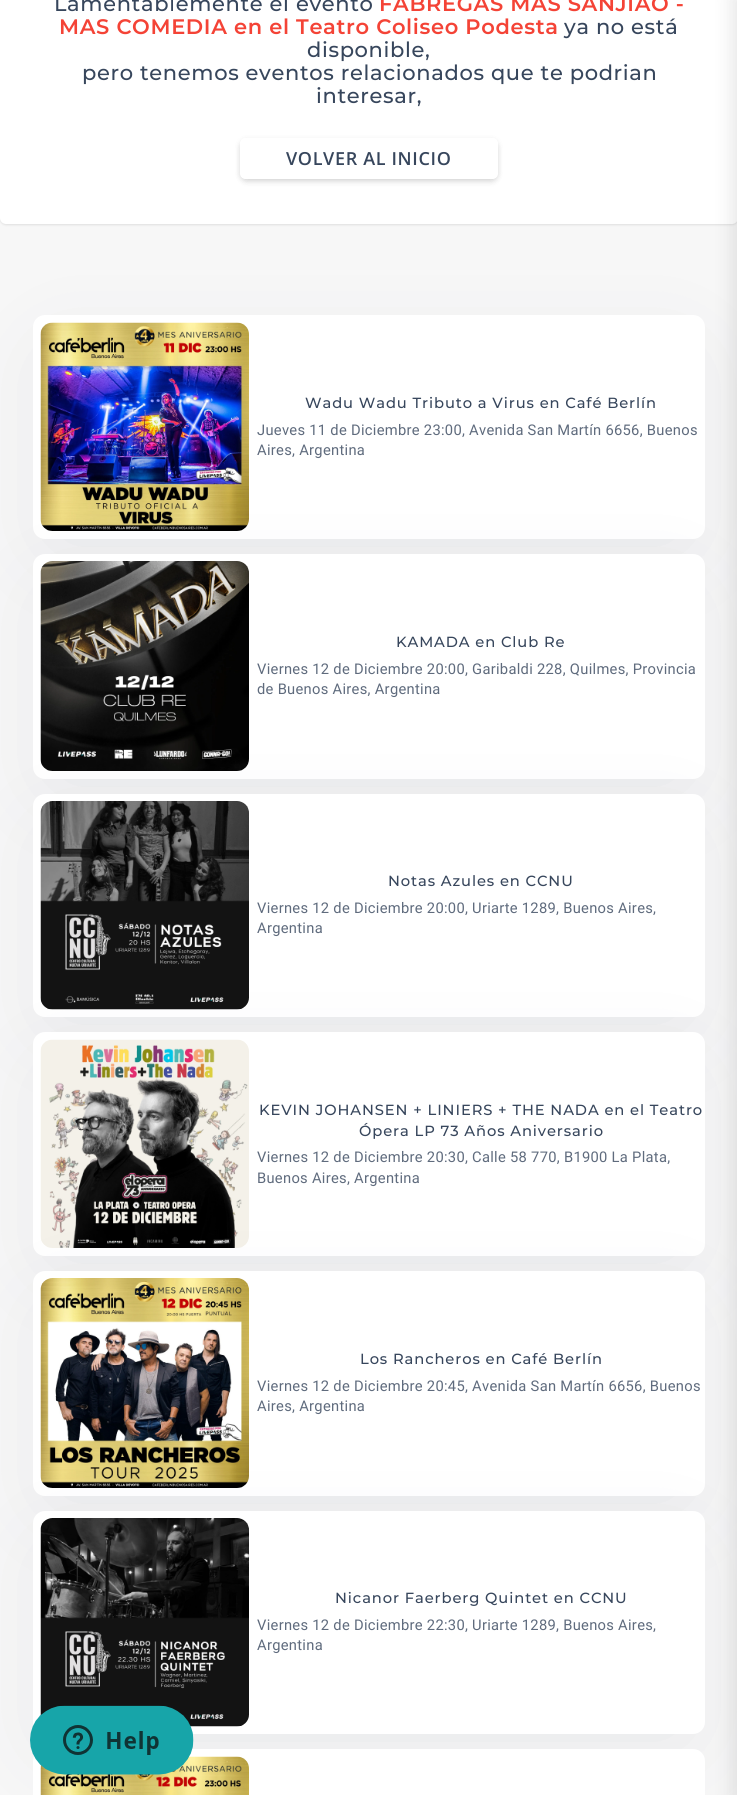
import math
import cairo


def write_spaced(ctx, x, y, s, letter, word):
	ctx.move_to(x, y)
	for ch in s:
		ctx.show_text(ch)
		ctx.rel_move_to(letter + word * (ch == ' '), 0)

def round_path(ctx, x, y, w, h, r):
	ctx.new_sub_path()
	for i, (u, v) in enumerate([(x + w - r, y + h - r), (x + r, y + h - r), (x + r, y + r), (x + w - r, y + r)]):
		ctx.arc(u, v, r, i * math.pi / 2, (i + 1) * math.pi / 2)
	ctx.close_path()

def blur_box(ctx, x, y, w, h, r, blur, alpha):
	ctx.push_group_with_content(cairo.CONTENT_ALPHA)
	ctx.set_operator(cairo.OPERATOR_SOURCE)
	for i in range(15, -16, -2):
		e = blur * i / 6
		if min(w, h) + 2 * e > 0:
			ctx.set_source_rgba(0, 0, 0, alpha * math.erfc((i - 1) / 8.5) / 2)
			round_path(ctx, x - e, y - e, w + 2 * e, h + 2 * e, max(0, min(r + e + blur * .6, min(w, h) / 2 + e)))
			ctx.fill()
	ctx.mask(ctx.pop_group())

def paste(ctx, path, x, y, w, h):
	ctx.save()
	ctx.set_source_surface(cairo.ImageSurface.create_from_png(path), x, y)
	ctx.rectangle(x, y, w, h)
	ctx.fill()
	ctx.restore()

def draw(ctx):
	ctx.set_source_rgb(0.965, 0.965, 0.965)
	ctx.paint()
	ctx.set_source_rgb(0, 0, 0)
	blur_box(ctx, 0, -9, 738, 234, 6, 1, 0.1)
	ctx.set_source_rgb(1, 1, 1)
	round_path(ctx, 0, -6, 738, 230, 6)
	ctx.fill()
	ctx.select_font_face('Montserrat Medium')
	ctx.set_font_size(21)
	ctx.set_source_rgb(0.216, 0.275, 0.361)
	write_spaced(ctx, 54, 11, 'Lamentablemente el evento', 0.65, 0)
	ctx.select_font_face('Montserrat SemiBold')
	ctx.set_source_rgb(0.957, 0.263, 0.212)
	write_spaced(ctx, 379, 11, 'FABREGAS MAS SANJIAO -', 0.65, 0)
	write_spaced(ctx, 59, 34, 'MAS COMEDIA en el Teatro Coliseo Podesta', 0.65, 0)
	ctx.select_font_face('Montserrat Medium')
	ctx.set_source_rgb(0.216, 0.275, 0.361)
	for x, y, s in [
		(564, 34, 'ya no está'),
		(307, 57, 'disponible,'),
		(82, 80, 'pero tenemos eventos relacionados que te podrian'),
		(316, 103, 'interesar,'),
	]:
		write_spaced(ctx, x, y, s, 0.65, 0)
	ctx.save()
	ctx.set_fill_rule(cairo.FILL_RULE_EVEN_ODD)
	ctx.new_path()
	ctx.move_to(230, 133)
	ctx.line_to(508, 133)
	ctx.line_to(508, 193)
	ctx.line_to(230, 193)
	ctx.close_path()
	ctx.move_to(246, 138)
	ctx.line_to(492, 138)
	ctx.curve_to(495.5, 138, 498, 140.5, 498, 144)
	ctx.line_to(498, 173)
	ctx.curve_to(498, 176.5, 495.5, 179, 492, 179)
	ctx.line_to(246, 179)
	ctx.curve_to(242.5, 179, 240, 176.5, 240, 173)
	ctx.line_to(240, 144)
	ctx.curve_to(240, 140.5, 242.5, 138, 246, 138)
	ctx.close_path()
	ctx.clip()
	ctx.set_source_rgb(0, 0, 0)
	blur_box(ctx, 243, 146, 252, 34, 3, 4, 0.13)
	ctx.restore()
	ctx.save()
	ctx.set_fill_rule(cairo.FILL_RULE_EVEN_ODD)
	ctx.new_path()
	ctx.move_to(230, 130)
	ctx.line_to(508, 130)
	ctx.line_to(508, 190)
	ctx.line_to(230, 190)
	ctx.close_path()
	ctx.move_to(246, 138)
	ctx.line_to(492, 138)
	ctx.curve_to(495.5, 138, 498, 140.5, 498, 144)
	ctx.line_to(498, 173)
	ctx.curve_to(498, 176.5, 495.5, 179, 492, 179)
	ctx.line_to(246, 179)
	ctx.curve_to(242.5, 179, 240, 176.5, 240, 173)
	ctx.line_to(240, 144)
	ctx.curve_to(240, 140.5, 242.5, 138, 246, 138)
	ctx.close_path()
	ctx.clip()
	ctx.set_source_rgb(0, 0, 0)
	blur_box(ctx, 240, 140, 258, 40, 6, 3, 0.11)
	ctx.restore()
	ctx.select_font_face('Open Sans SemiBold')
	ctx.set_font_size(18)
	write_spaced(ctx, 286, 165, 'VOLVER AL INICIO', 0.65, 0)
	ctx.set_source_rgb(0.18, 0.216, 0.302)
	blur_box(ctx, 57, 363, 624, 176, 0, 48, 0.1)
	ctx.set_source_rgb(1, 1, 1)
	round_path(ctx, 33, 315, 672, 224, 12)
	ctx.fill()
	paste(ctx, 'media/1.png', 40, 322, 209, 209)
	ctx.set_source_rgb(0.18, 0.216, 0.302)
	blur_box(ctx, 57, 602, 624, 177, 0, 48, 0.1)
	ctx.set_source_rgb(1, 1, 1)
	round_path(ctx, 33, 554, 672, 225, 12)
	ctx.fill()
	paste(ctx, 'media/2.png', 40, 561, 209, 210)
	ctx.set_source_rgb(0.18, 0.216, 0.302)
	blur_box(ctx, 57, 842, 624, 175, 0, 48, 0.1)
	ctx.set_source_rgb(1, 1, 1)
	round_path(ctx, 33, 794, 672, 223, 12)
	ctx.fill()
	paste(ctx, 'media/3.png', 40, 801, 209, 209)
	ctx.set_source_rgb(0.18, 0.216, 0.302)
	blur_box(ctx, 57, 1080, 624, 176, 0, 48, 0.1)
	ctx.set_source_rgb(1, 1, 1)
	round_path(ctx, 33, 1032, 672, 224, 12)
	ctx.fill()
	paste(ctx, 'media/4.png', 40, 1039, 209, 209)
	ctx.set_source_rgb(0.18, 0.216, 0.302)
	blur_box(ctx, 57, 1319, 624, 177, 0, 48, 0.1)
	ctx.set_source_rgb(1, 1, 1)
	round_path(ctx, 33, 1271, 672, 225, 12)
	ctx.fill()
	paste(ctx, 'media/5.png', 40, 1278, 209, 210)
	ctx.set_source_rgb(0.18, 0.216, 0.302)
	blur_box(ctx, 57, 1559, 624, 175, 0, 48, 0.1)
	ctx.set_source_rgb(1, 1, 1)
	round_path(ctx, 33, 1511, 672, 223, 12)
	ctx.fill()
	round_path(ctx, 33, 1749, 672, 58, 12)
	ctx.fill()
	ctx.set_source_rgb(0, 0, 0)
	blur_box(ctx, 731, -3, 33, 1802, 0, 9, 0.09)
	ctx.select_font_face('Montserrat Medium')
	ctx.set_font_size(14.7)
	ctx.set_source_rgb(0.216, 0.275, 0.361)
	write_spaced(ctx, 305, 408, 'Wadu Wadu Tributo a Virus en Café Berlín', 0.9, 0)
	ctx.select_font_face('Roboto')
	ctx.set_source_rgb(0.373, 0.42, 0.49)
	write_spaced(ctx, 257, 435, 'Jueves 11 de Diciembre 23:00, Avenida San Martín 6656, Buenos', 0.3, 0)
	write_spaced(ctx, 257, 455, 'Aires, Argentina', 0.3, 0)
	ctx.select_font_face('Montserrat Medium')
	ctx.set_source_rgb(0.216, 0.275, 0.361)
	write_spaced(ctx, 396, 647, 'KAMADA en Club Re', 0.9, 0)
	ctx.select_font_face('Roboto')
	ctx.set_source_rgb(0.373, 0.42, 0.49)
	write_spaced(ctx, 257, 674, 'Viernes 12 de Diciembre 20:00, Garibaldi 228, Quilmes, Provincia', 0.3, 0)
	write_spaced(ctx, 257, 694, 'de Buenos Aires, Argentina', 0.3, 0)
	ctx.select_font_face('Montserrat Medium')
	ctx.set_source_rgb(0.216, 0.275, 0.361)
	write_spaced(ctx, 388, 886, 'Notas Azules en CCNU', 0.9, 0)
	ctx.select_font_face('Roboto')
	ctx.set_source_rgb(0.373, 0.42, 0.49)
	write_spaced(ctx, 257, 913, 'Viernes 12 de Diciembre 20:00, Uriarte 1289, Buenos Aires,', 0.3, 0)
	write_spaced(ctx, 257, 933, 'Argentina', 0.3, 0)
	ctx.select_font_face('Montserrat Medium')
	ctx.set_source_rgb(0.216, 0.275, 0.361)
	write_spaced(ctx, 259, 1115, 'KEVIN JOHANSEN + LINIERS + THE NADA en el Teatro', 0.9, 0)
	write_spaced(ctx, 359, 1136, 'Ópera LP 73 Años Aniversario', 0.9, 0)
	ctx.select_font_face('Roboto')
	ctx.set_source_rgb(0.373, 0.42, 0.49)
	write_spaced(ctx, 257, 1162, 'Viernes 12 de Diciembre 20:30, Calle 58 770, B1900 La Plata,', 0.3, 0)
	write_spaced(ctx, 257, 1183, 'Buenos Aires, Argentina', 0.3, 0)
	ctx.select_font_face('Montserrat Medium')
	ctx.set_source_rgb(0.216, 0.275, 0.361)
	write_spaced(ctx, 360, 1364, 'Los Rancheros en Café Berlín', 0.9, 0)
	ctx.select_font_face('Roboto')
	ctx.set_source_rgb(0.373, 0.42, 0.49)
	write_spaced(ctx, 257, 1391, 'Viernes 12 de Diciembre 20:45, Avenida San Martín 6656, Buenos', 0.3, 0)
	write_spaced(ctx, 257, 1411, 'Aires, Argentina', 0.3, 0)
	paste(ctx, 'media/6.png', 40, 1518, 209, 209)
	ctx.select_font_face('Montserrat Medium')
	ctx.set_source_rgb(0.216, 0.275, 0.361)
	write_spaced(ctx, 335, 1603, 'Nicanor Faerberg Quintet en CCNU', 0.9, 0)
	ctx.select_font_face('Roboto')
	ctx.set_source_rgb(0.373, 0.42, 0.49)
	write_spaced(ctx, 257, 1630, 'Viernes 12 de Diciembre 22:30, Uriarte 1289, Buenos Aires,', 0.3, 0)
	write_spaced(ctx, 257, 1650, 'Argentina', 0.3, 0)
	paste(ctx, 'media/7.png', 40, 1756, 209, 39)
	paste(ctx, 'media/8.png', 30, 1705, 164, 70)


surface = cairo.ImageSurface(cairo.FORMAT_RGB24, 737, 1795)
ctx = cairo.Context(surface)
options = cairo.FontOptions()
options.set_hint_metrics(cairo.HINT_METRICS_OFF)
options.set_hint_style(cairo.HINT_STYLE_NONE)
ctx.set_font_options(options)
ctx.set_miter_limit(4)
draw(ctx)
surface.write_to_png('image.png')
